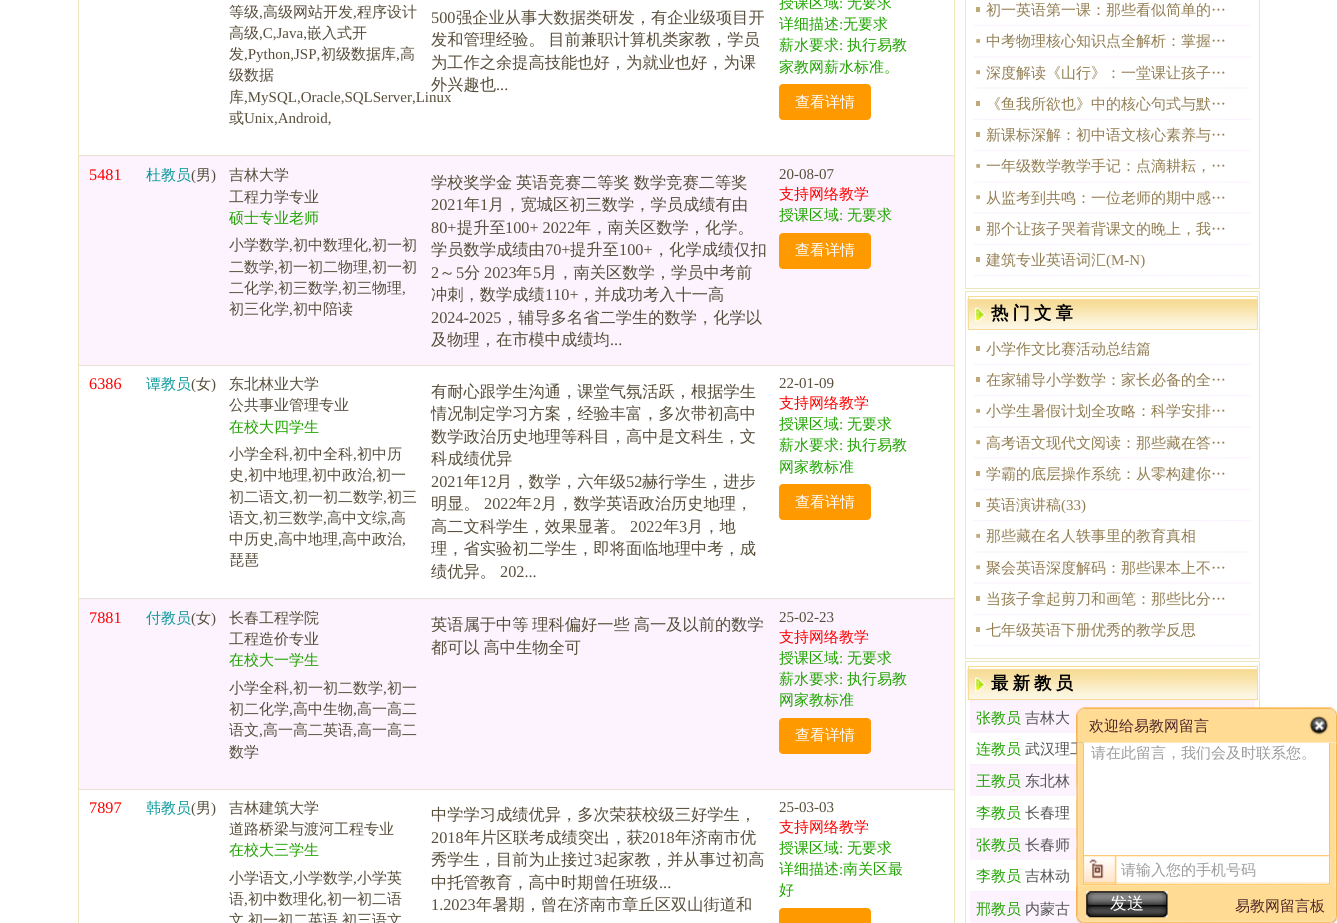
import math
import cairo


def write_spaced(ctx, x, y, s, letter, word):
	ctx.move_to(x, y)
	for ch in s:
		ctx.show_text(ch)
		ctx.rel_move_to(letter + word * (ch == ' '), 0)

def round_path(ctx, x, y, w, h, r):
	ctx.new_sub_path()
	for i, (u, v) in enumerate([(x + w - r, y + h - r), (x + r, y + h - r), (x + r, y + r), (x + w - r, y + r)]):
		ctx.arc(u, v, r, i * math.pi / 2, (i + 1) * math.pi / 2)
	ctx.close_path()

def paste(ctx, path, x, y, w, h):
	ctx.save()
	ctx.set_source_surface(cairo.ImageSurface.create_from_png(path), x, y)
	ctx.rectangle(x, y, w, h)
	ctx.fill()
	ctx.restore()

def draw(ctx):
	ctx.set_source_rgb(1, 1, 1)
	ctx.paint()
	ctx.rectangle(78.5, -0.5, 876, 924)
	ctx.set_source_rgb(0.937, 0.906, 0.737)
	ctx.set_line_width(1)
	ctx.stroke()
	ctx.set_source_rgb(0.914, 0.886, 0.835)
	ctx.rectangle(79, 155, 875, 1)
	ctx.fill()
	ctx.select_font_face('WenQuanYi Zen Hei Medium')
	ctx.set_font_size(15)
	ctx.set_source_rgb(0.341, 0.302, 0.227)
	ctx.move_to(229, 17)
	ctx.show_text('等级')
	ctx.select_font_face('Liberation Serif')
	ctx.move_to(259, 17)
	ctx.show_text(',')
	ctx.select_font_face('WenQuanYi Zen Hei Medium')
	ctx.move_to(263, 17)
	ctx.show_text('高级网站开发')
	ctx.select_font_face('Liberation Serif')
	ctx.move_to(353, 17)
	ctx.show_text(',')
	ctx.select_font_face('WenQuanYi Zen Hei Medium')
	ctx.move_to(357, 17)
	ctx.show_text('程序设计')
	ctx.move_to(229, 38)
	ctx.show_text('高级')
	ctx.select_font_face('Liberation Serif')
	ctx.move_to(259, 38)
	ctx.show_text(',C,Java,')
	ctx.select_font_face('WenQuanYi Zen Hei Medium')
	ctx.move_to(307, 38)
	ctx.show_text('嵌入式开')
	ctx.move_to(229, 59)
	ctx.show_text('发')
	ctx.select_font_face('Liberation Serif')
	ctx.move_to(244, 59)
	ctx.show_text(',Python,JSP,')
	ctx.select_font_face('WenQuanYi Zen Hei Medium')
	ctx.move_to(321, 59)
	ctx.show_text('初级数据库')
	ctx.select_font_face('Liberation Serif')
	ctx.move_to(396, 59)
	ctx.show_text(',')
	ctx.select_font_face('WenQuanYi Zen Hei Medium')
	for x, y, s in [
		(400, 59, '高'),
		(229, 80, '级数据'),
		(229, 102, '库'),
	]:
		ctx.move_to(x, y)
		ctx.show_text(s)
	ctx.select_font_face('Liberation Serif')
	ctx.move_to(244, 102)
	ctx.show_text(',MySQL,Oracle,SQLServer,Linux')
	ctx.select_font_face('WenQuanYi Zen Hei Medium')
	ctx.move_to(229, 123)
	ctx.show_text('或')
	ctx.select_font_face('Liberation Serif')
	ctx.move_to(244, 123)
	ctx.show_text('Unix,Android,')
	ctx.set_font_size(16.25)
	ctx.move_to(431, 23)
	ctx.show_text('500')
	ctx.select_font_face('WenQuanYi Zen Hei Medium')
	ctx.move_to(456, 23)
	ctx.show_text('强企业从事大数据类研发，有企业级项目开')
	write_spaced(ctx, 431, 45, '发和管理经验。 目前兼职计算机类家教，学员', 0, -1)
	ctx.move_to(431, 68)
	ctx.show_text('为工作之余提高技能也好，为就业也好，为课')
	ctx.move_to(431, 90)
	ctx.show_text('外兴趣也')
	ctx.select_font_face('Liberation Serif')
	ctx.move_to(496, 90)
	ctx.show_text('...')
	ctx.select_font_face('WenQuanYi Zen Hei Medium')
	ctx.set_font_size(15)
	ctx.set_source_rgb(0.122, 0.639, 0)
	ctx.move_to(779, 8)
	ctx.show_text('授课区域')
	ctx.select_font_face('Liberation Serif')
	ctx.move_to(839, 8)
	ctx.show_text(':')
	ctx.select_font_face('WenQuanYi Zen Hei Medium')
	ctx.move_to(847, 8)
	ctx.show_text('无要求')
	ctx.move_to(779, 29)
	ctx.show_text('详细描述')
	ctx.select_font_face('Liberation Serif')
	ctx.move_to(839, 29)
	ctx.show_text(':')
	ctx.select_font_face('WenQuanYi Zen Hei Medium')
	ctx.move_to(843, 29)
	ctx.show_text('无要求')
	ctx.move_to(779, 50)
	ctx.show_text('薪水要求')
	ctx.select_font_face('Liberation Serif')
	ctx.move_to(839, 50)
	ctx.show_text(':')
	ctx.select_font_face('WenQuanYi Zen Hei Medium')
	ctx.move_to(847, 50)
	ctx.show_text('执行易教')
	ctx.move_to(779, 72)
	ctx.show_text('家教网薪水标准。')
	ctx.set_source_rgb(1, 0.6, 0)
	round_path(ctx, 779.5, 84.5, 91, 35, 3.5)
	ctx.fill_preserve()
	ctx.stroke()
	ctx.set_source_rgb(1, 1, 1)
	ctx.move_to(795, 107)
	ctx.show_text('查看详情')
	ctx.set_source_rgb(0.988, 0.953, 0.996)
	ctx.rectangle(79, 157, 875, 208)
	ctx.fill()
	ctx.set_source_rgb(0.98, 0.937, 0.988)
	ctx.rectangle(79, 156, 875, 1)
	ctx.fill()
	ctx.set_source_rgb(0.914, 0.886, 0.835)
	ctx.rectangle(79, 365, 875, 1)
	ctx.fill()
	ctx.select_font_face('Liberation Serif')
	ctx.set_font_size(16.25)
	ctx.set_source_rgb(1, 0, 0)
	ctx.move_to(89, 180)
	ctx.show_text('5481')
	ctx.select_font_face('WenQuanYi Zen Hei Medium')
	ctx.set_font_size(15)
	ctx.set_source_rgb(0.059, 0.596, 0.612)
	ctx.move_to(146, 180)
	ctx.show_text('杜教员')
	ctx.select_font_face('Liberation Serif')
	ctx.set_source_rgb(0.341, 0.302, 0.227)
	ctx.move_to(191, 180)
	ctx.show_text('(')
	ctx.select_font_face('WenQuanYi Zen Hei Medium')
	ctx.move_to(196, 180)
	ctx.show_text('男')
	ctx.select_font_face('Liberation Serif')
	ctx.move_to(211, 180)
	ctx.show_text(')')
	ctx.select_font_face('WenQuanYi Zen Hei Medium')
	ctx.move_to(229, 180)
	ctx.show_text('吉林大学')
	ctx.move_to(229, 202)
	ctx.show_text('工程力学专业')
	ctx.set_source_rgb(0.122, 0.639, 0)
	ctx.move_to(229, 223)
	ctx.show_text('硕士专业老师')
	ctx.set_source_rgb(0.341, 0.302, 0.227)
	ctx.move_to(229, 250)
	ctx.show_text('小学数学')
	ctx.select_font_face('Liberation Serif')
	ctx.move_to(289, 250)
	ctx.show_text(',')
	ctx.select_font_face('WenQuanYi Zen Hei Medium')
	ctx.move_to(293, 250)
	ctx.show_text('初中数理化')
	ctx.select_font_face('Liberation Serif')
	ctx.move_to(368, 250)
	ctx.show_text(',')
	ctx.select_font_face('WenQuanYi Zen Hei Medium')
	ctx.move_to(372, 250)
	ctx.show_text('初一初')
	ctx.move_to(229, 272)
	ctx.show_text('二数学')
	ctx.select_font_face('Liberation Serif')
	ctx.move_to(274, 272)
	ctx.show_text(',')
	ctx.select_font_face('WenQuanYi Zen Hei Medium')
	ctx.move_to(278, 272)
	ctx.show_text('初一初二物理')
	ctx.select_font_face('Liberation Serif')
	ctx.move_to(368, 272)
	ctx.show_text(',')
	ctx.select_font_face('WenQuanYi Zen Hei Medium')
	ctx.move_to(372, 272)
	ctx.show_text('初一初')
	ctx.move_to(229, 293)
	ctx.show_text('二化学')
	ctx.select_font_face('Liberation Serif')
	ctx.move_to(274, 293)
	ctx.show_text(',')
	ctx.select_font_face('WenQuanYi Zen Hei Medium')
	ctx.move_to(278, 293)
	ctx.show_text('初三数学')
	ctx.select_font_face('Liberation Serif')
	ctx.move_to(338, 293)
	ctx.show_text(',')
	ctx.select_font_face('WenQuanYi Zen Hei Medium')
	ctx.move_to(342, 293)
	ctx.show_text('初三物理')
	ctx.select_font_face('Liberation Serif')
	ctx.move_to(402, 293)
	ctx.show_text(',')
	ctx.select_font_face('WenQuanYi Zen Hei Medium')
	ctx.move_to(229, 314)
	ctx.show_text('初三化学')
	ctx.select_font_face('Liberation Serif')
	ctx.move_to(289, 314)
	ctx.show_text(',')
	ctx.select_font_face('WenQuanYi Zen Hei Medium')
	ctx.move_to(293, 314)
	ctx.show_text('初中陪读')
	ctx.set_font_size(16.25)
	write_spaced(ctx, 431, 188, '学校奖学金 英语竞赛二等奖 数学竞赛二等奖', 0, -1)
	ctx.select_font_face('Liberation Serif')
	ctx.move_to(431, 210)
	ctx.show_text('2021')
	ctx.select_font_face('WenQuanYi Zen Hei Medium')
	ctx.move_to(464, 210)
	ctx.show_text('年')
	ctx.select_font_face('Liberation Serif')
	ctx.move_to(480, 210)
	ctx.show_text('1')
	ctx.select_font_face('WenQuanYi Zen Hei Medium')
	ctx.move_to(488, 210)
	ctx.show_text('月，宽城区初三数学，学员成绩有由')
	ctx.select_font_face('Liberation Serif')
	ctx.move_to(431, 233)
	ctx.show_text('80+')
	ctx.select_font_face('WenQuanYi Zen Hei Medium')
	ctx.move_to(457, 233)
	ctx.show_text('提升至')
	ctx.select_font_face('Liberation Serif')
	ctx.move_to(505, 233)
	ctx.show_text('100+ 2022')
	ctx.select_font_face('WenQuanYi Zen Hei Medium')
	ctx.move_to(575, 233)
	ctx.show_text('年，南关区数学，化学。')
	ctx.move_to(431, 255)
	ctx.show_text('学员数学成绩由')
	ctx.select_font_face('Liberation Serif')
	ctx.move_to(545, 255)
	ctx.show_text('70+')
	ctx.select_font_face('WenQuanYi Zen Hei Medium')
	ctx.move_to(570, 255)
	ctx.show_text('提升至')
	ctx.select_font_face('Liberation Serif')
	ctx.move_to(619, 255)
	ctx.show_text('100+')
	ctx.select_font_face('WenQuanYi Zen Hei Medium')
	ctx.move_to(653, 255)
	ctx.show_text('，化学成绩仅扣')
	ctx.select_font_face('Liberation Serif')
	ctx.move_to(431, 278)
	ctx.show_text('2')
	ctx.select_font_face('WenQuanYi Zen Hei Medium')
	ctx.move_to(439, 278)
	ctx.show_text('～')
	ctx.select_font_face('Liberation Serif')
	ctx.move_to(456, 278)
	ctx.show_text('5')
	ctx.select_font_face('WenQuanYi Zen Hei Medium')
	ctx.move_to(464, 278)
	ctx.show_text('分')
	ctx.select_font_face('Liberation Serif')
	ctx.move_to(484, 278)
	ctx.show_text('2023')
	ctx.select_font_face('WenQuanYi Zen Hei Medium')
	ctx.move_to(516, 278)
	ctx.show_text('年')
	ctx.select_font_face('Liberation Serif')
	ctx.move_to(533, 278)
	ctx.show_text('5')
	ctx.select_font_face('WenQuanYi Zen Hei Medium')
	ctx.move_to(541, 278)
	ctx.show_text('月，南关区数学，学员中考前')
	ctx.move_to(431, 300)
	ctx.show_text('冲刺，数学成绩')
	ctx.select_font_face('Liberation Serif')
	ctx.move_to(545, 300)
	ctx.show_text('110+')
	ctx.select_font_face('WenQuanYi Zen Hei Medium')
	ctx.move_to(578, 300)
	ctx.show_text('，并成功考入十一高')
	ctx.select_font_face('Liberation Serif')
	ctx.move_to(431, 323)
	ctx.show_text('2024-2025')
	ctx.select_font_face('WenQuanYi Zen Hei Medium')
	ctx.move_to(502, 323)
	ctx.show_text('，辅导多名省二学生的数学，化学以')
	ctx.move_to(431, 345)
	ctx.show_text('及物理，在市模中成绩均')
	ctx.select_font_face('Liberation Serif')
	ctx.move_to(610, 345)
	ctx.show_text('...')
	ctx.set_font_size(15)
	ctx.move_to(779, 179)
	ctx.show_text('20-08-07')
	ctx.select_font_face('WenQuanYi Zen Hei Medium')
	ctx.set_source_rgb(1, 0, 0)
	ctx.move_to(779, 199)
	ctx.show_text('支持网络教学')
	ctx.set_source_rgb(0.122, 0.639, 0)
	ctx.move_to(779, 220)
	ctx.show_text('授课区域')
	ctx.select_font_face('Liberation Serif')
	ctx.move_to(839, 220)
	ctx.show_text(':')
	ctx.select_font_face('WenQuanYi Zen Hei Medium')
	ctx.move_to(847, 220)
	ctx.show_text('无要求')
	ctx.set_source_rgb(1, 0.6, 0)
	round_path(ctx, 779.5, 233.5, 91, 35, 3.5)
	ctx.fill_preserve()
	ctx.stroke()
	ctx.set_source_rgb(1, 1, 1)
	ctx.move_to(795, 255)
	ctx.show_text('查看详情')
	ctx.set_source_rgb(0.914, 0.886, 0.835)
	ctx.rectangle(79, 598, 875, 1)
	ctx.fill()
	ctx.select_font_face('Liberation Serif')
	ctx.set_font_size(16.25)
	ctx.set_source_rgb(1, 0, 0)
	ctx.move_to(89, 389)
	ctx.show_text('6386')
	ctx.select_font_face('WenQuanYi Zen Hei Medium')
	ctx.set_font_size(15)
	ctx.set_source_rgb(0.059, 0.596, 0.612)
	ctx.move_to(146, 389)
	ctx.show_text('谭教员')
	ctx.select_font_face('Liberation Serif')
	ctx.set_source_rgb(0.341, 0.302, 0.227)
	ctx.move_to(191, 389)
	ctx.show_text('(')
	ctx.select_font_face('WenQuanYi Zen Hei Medium')
	ctx.move_to(196, 389)
	ctx.show_text('女')
	ctx.select_font_face('Liberation Serif')
	ctx.move_to(211, 389)
	ctx.show_text(')')
	ctx.select_font_face('WenQuanYi Zen Hei Medium')
	ctx.move_to(229, 389)
	ctx.show_text('东北林业大学')
	ctx.move_to(229, 410)
	ctx.show_text('公共事业管理专业')
	ctx.set_source_rgb(0.122, 0.639, 0)
	ctx.move_to(229, 432)
	ctx.show_text('在校大四学生')
	ctx.set_source_rgb(0.341, 0.302, 0.227)
	ctx.move_to(229, 459)
	ctx.show_text('小学全科')
	ctx.select_font_face('Liberation Serif')
	ctx.move_to(289, 459)
	ctx.show_text(',')
	ctx.select_font_face('WenQuanYi Zen Hei Medium')
	ctx.move_to(293, 459)
	ctx.show_text('初中全科')
	ctx.select_font_face('Liberation Serif')
	ctx.move_to(353, 459)
	ctx.show_text(',')
	ctx.select_font_face('WenQuanYi Zen Hei Medium')
	ctx.move_to(357, 459)
	ctx.show_text('初中历')
	ctx.move_to(229, 480)
	ctx.show_text('史')
	ctx.select_font_face('Liberation Serif')
	ctx.move_to(244, 480)
	ctx.show_text(',')
	ctx.select_font_face('WenQuanYi Zen Hei Medium')
	ctx.move_to(248, 480)
	ctx.show_text('初中地理')
	ctx.select_font_face('Liberation Serif')
	ctx.move_to(308, 480)
	ctx.show_text(',')
	ctx.select_font_face('WenQuanYi Zen Hei Medium')
	ctx.move_to(312, 480)
	ctx.show_text('初中政治')
	ctx.select_font_face('Liberation Serif')
	ctx.move_to(372, 480)
	ctx.show_text(',')
	ctx.select_font_face('WenQuanYi Zen Hei Medium')
	ctx.move_to(376, 480)
	ctx.show_text('初一')
	ctx.move_to(229, 502)
	ctx.show_text('初二语文')
	ctx.select_font_face('Liberation Serif')
	ctx.move_to(289, 502)
	ctx.show_text(',')
	ctx.select_font_face('WenQuanYi Zen Hei Medium')
	ctx.move_to(293, 502)
	ctx.show_text('初一初二数学')
	ctx.select_font_face('Liberation Serif')
	ctx.move_to(383, 502)
	ctx.show_text(',')
	ctx.select_font_face('WenQuanYi Zen Hei Medium')
	ctx.move_to(387, 502)
	ctx.show_text('初三')
	ctx.move_to(229, 523)
	ctx.show_text('语文')
	ctx.select_font_face('Liberation Serif')
	ctx.move_to(259, 523)
	ctx.show_text(',')
	ctx.select_font_face('WenQuanYi Zen Hei Medium')
	ctx.move_to(263, 523)
	ctx.show_text('初三数学')
	ctx.select_font_face('Liberation Serif')
	ctx.move_to(323, 523)
	ctx.show_text(',')
	ctx.select_font_face('WenQuanYi Zen Hei Medium')
	ctx.move_to(327, 523)
	ctx.show_text('高中文综')
	ctx.select_font_face('Liberation Serif')
	ctx.move_to(387, 523)
	ctx.show_text(',')
	ctx.select_font_face('WenQuanYi Zen Hei Medium')
	ctx.move_to(391, 523)
	ctx.show_text('高')
	ctx.move_to(229, 544)
	ctx.show_text('中历史')
	ctx.select_font_face('Liberation Serif')
	ctx.move_to(274, 544)
	ctx.show_text(',')
	ctx.select_font_face('WenQuanYi Zen Hei Medium')
	ctx.move_to(278, 544)
	ctx.show_text('高中地理')
	ctx.select_font_face('Liberation Serif')
	ctx.move_to(338, 544)
	ctx.show_text(',')
	ctx.select_font_face('WenQuanYi Zen Hei Medium')
	ctx.move_to(342, 544)
	ctx.show_text('高中政治')
	ctx.select_font_face('Liberation Serif')
	ctx.move_to(402, 544)
	ctx.show_text(',')
	ctx.select_font_face('WenQuanYi Zen Hei Medium')
	ctx.move_to(229, 565)
	ctx.show_text('琵琶')
	ctx.set_font_size(16.25)
	for x, y, s in [
		(431, 397, '有耐心跟学生沟通，课堂气氛活跃，根据学生'),
		(431, 419, '情况制定学习方案，经验丰富，多次带初高中'),
		(431, 442, '数学政治历史地理等科目，高中是文科生，文'),
		(431, 464, '科成绩优异'),
	]:
		ctx.move_to(x, y)
		ctx.show_text(s)
	ctx.select_font_face('Liberation Serif')
	ctx.move_to(431, 487)
	ctx.show_text('2021')
	ctx.select_font_face('WenQuanYi Zen Hei Medium')
	ctx.move_to(464, 487)
	ctx.show_text('年')
	ctx.select_font_face('Liberation Serif')
	ctx.move_to(480, 487)
	ctx.show_text('12')
	ctx.select_font_face('WenQuanYi Zen Hei Medium')
	ctx.move_to(496, 487)
	ctx.show_text('月，数学，六年级')
	ctx.select_font_face('Liberation Serif')
	ctx.move_to(626, 487)
	ctx.show_text('52')
	ctx.select_font_face('WenQuanYi Zen Hei Medium')
	ctx.move_to(642, 487)
	ctx.show_text('赫行学生，进步')
	ctx.move_to(431, 509)
	ctx.show_text('明显。')
	ctx.select_font_face('Liberation Serif')
	ctx.move_to(484, 509)
	ctx.show_text('2022')
	ctx.select_font_face('WenQuanYi Zen Hei Medium')
	ctx.move_to(516, 509)
	ctx.show_text('年')
	ctx.select_font_face('Liberation Serif')
	ctx.move_to(533, 509)
	ctx.show_text('2')
	ctx.select_font_face('WenQuanYi Zen Hei Medium')
	ctx.move_to(541, 509)
	ctx.show_text('月，数学英语政治历史地理，')
	ctx.move_to(431, 532)
	ctx.show_text('高二文科学生，效果显著。')
	ctx.select_font_face('Liberation Serif')
	ctx.move_to(630, 532)
	ctx.show_text('2022')
	ctx.select_font_face('WenQuanYi Zen Hei Medium')
	ctx.move_to(663, 532)
	ctx.show_text('年')
	ctx.select_font_face('Liberation Serif')
	ctx.move_to(679, 532)
	ctx.show_text('3')
	ctx.select_font_face('WenQuanYi Zen Hei Medium')
	for x, y, s in [
		(687, 532, '月，地'),
		(431, 554, '理，省实验初二学生，即将面临地理中考，成'),
		(431, 577, '绩优异。'),
	]:
		ctx.move_to(x, y)
		ctx.show_text(s)
	ctx.select_font_face('Liberation Serif')
	ctx.move_to(500, 577)
	ctx.show_text('202...')
	ctx.set_font_size(15)
	ctx.move_to(779, 388)
	ctx.show_text('22-01-09')
	ctx.select_font_face('WenQuanYi Zen Hei Medium')
	ctx.set_source_rgb(1, 0, 0)
	ctx.move_to(779, 408)
	ctx.show_text('支持网络教学')
	ctx.set_source_rgb(0.122, 0.639, 0)
	ctx.move_to(779, 429)
	ctx.show_text('授课区域')
	ctx.select_font_face('Liberation Serif')
	ctx.move_to(839, 429)
	ctx.show_text(':')
	ctx.select_font_face('WenQuanYi Zen Hei Medium')
	ctx.move_to(847, 429)
	ctx.show_text('无要求')
	ctx.move_to(779, 450)
	ctx.show_text('薪水要求')
	ctx.select_font_face('Liberation Serif')
	ctx.move_to(839, 450)
	ctx.show_text(':')
	ctx.select_font_face('WenQuanYi Zen Hei Medium')
	ctx.move_to(847, 450)
	ctx.show_text('执行易教')
	ctx.move_to(779, 472)
	ctx.show_text('网家教标准')
	ctx.set_source_rgb(1, 0.6, 0)
	round_path(ctx, 779.5, 484.5, 91, 35, 3.5)
	ctx.fill_preserve()
	ctx.stroke()
	ctx.set_source_rgb(1, 1, 1)
	ctx.move_to(795, 507)
	ctx.show_text('查看详情')
	ctx.set_source_rgb(0.988, 0.953, 0.996)
	ctx.rectangle(79, 600, 875, 189)
	ctx.fill()
	ctx.set_source_rgb(0.98, 0.937, 0.988)
	ctx.rectangle(79, 599, 875, 1)
	ctx.fill()
	ctx.set_source_rgb(0.914, 0.886, 0.835)
	ctx.rectangle(79, 789, 875, 1)
	ctx.fill()
	ctx.select_font_face('Liberation Serif')
	ctx.set_font_size(16.25)
	ctx.set_source_rgb(1, 0, 0)
	ctx.move_to(89, 623)
	ctx.show_text('7881')
	ctx.select_font_face('WenQuanYi Zen Hei Medium')
	ctx.set_font_size(15)
	ctx.set_source_rgb(0.059, 0.596, 0.612)
	ctx.move_to(146, 623)
	ctx.show_text('付教员')
	ctx.select_font_face('Liberation Serif')
	ctx.set_source_rgb(0.341, 0.302, 0.227)
	ctx.move_to(191, 623)
	ctx.show_text('(')
	ctx.select_font_face('WenQuanYi Zen Hei Medium')
	ctx.move_to(196, 623)
	ctx.show_text('女')
	ctx.select_font_face('Liberation Serif')
	ctx.move_to(211, 623)
	ctx.show_text(')')
	ctx.select_font_face('WenQuanYi Zen Hei Medium')
	ctx.move_to(229, 623)
	ctx.show_text('长春工程学院')
	ctx.move_to(229, 644)
	ctx.show_text('工程造价专业')
	ctx.set_source_rgb(0.122, 0.639, 0)
	ctx.move_to(229, 665)
	ctx.show_text('在校大一学生')
	ctx.set_source_rgb(0.341, 0.302, 0.227)
	ctx.move_to(229, 693)
	ctx.show_text('小学全科')
	ctx.select_font_face('Liberation Serif')
	ctx.move_to(289, 693)
	ctx.show_text(',')
	ctx.select_font_face('WenQuanYi Zen Hei Medium')
	ctx.move_to(293, 693)
	ctx.show_text('初一初二数学')
	ctx.select_font_face('Liberation Serif')
	ctx.move_to(383, 693)
	ctx.show_text(',')
	ctx.select_font_face('WenQuanYi Zen Hei Medium')
	ctx.move_to(387, 693)
	ctx.show_text('初一')
	ctx.move_to(229, 714)
	ctx.show_text('初二化学')
	ctx.select_font_face('Liberation Serif')
	ctx.move_to(289, 714)
	ctx.show_text(',')
	ctx.select_font_face('WenQuanYi Zen Hei Medium')
	ctx.move_to(293, 714)
	ctx.show_text('高中生物')
	ctx.select_font_face('Liberation Serif')
	ctx.move_to(353, 714)
	ctx.show_text(',')
	ctx.select_font_face('WenQuanYi Zen Hei Medium')
	ctx.move_to(357, 714)
	ctx.show_text('高一高二')
	ctx.move_to(229, 735)
	ctx.show_text('语文')
	ctx.select_font_face('Liberation Serif')
	ctx.move_to(259, 735)
	ctx.show_text(',')
	ctx.select_font_face('WenQuanYi Zen Hei Medium')
	ctx.move_to(263, 735)
	ctx.show_text('高一高二英语')
	ctx.select_font_face('Liberation Serif')
	ctx.move_to(353, 735)
	ctx.show_text(',')
	ctx.select_font_face('WenQuanYi Zen Hei Medium')
	ctx.move_to(357, 735)
	ctx.show_text('高一高二')
	ctx.move_to(229, 757)
	ctx.show_text('数学')
	ctx.set_font_size(16.25)
	write_spaced(ctx, 431, 630, '英语属于中等 理科偏好一些 高一及以前的数学', 0, -1)
	write_spaced(ctx, 431, 653, '都可以 高中生物全可', 0, -1)
	ctx.select_font_face('Liberation Serif')
	ctx.set_font_size(15)
	ctx.move_to(779, 622)
	ctx.show_text('25-02-23')
	ctx.select_font_face('WenQuanYi Zen Hei Medium')
	ctx.set_source_rgb(1, 0, 0)
	ctx.move_to(779, 642)
	ctx.show_text('支持网络教学')
	ctx.set_source_rgb(0.122, 0.639, 0)
	ctx.move_to(779, 663)
	ctx.show_text('授课区域')
	ctx.select_font_face('Liberation Serif')
	ctx.move_to(839, 663)
	ctx.show_text(':')
	ctx.select_font_face('WenQuanYi Zen Hei Medium')
	ctx.move_to(847, 663)
	ctx.show_text('无要求')
	ctx.move_to(779, 684)
	ctx.show_text('薪水要求')
	ctx.select_font_face('Liberation Serif')
	ctx.move_to(839, 684)
	ctx.show_text(':')
	ctx.select_font_face('WenQuanYi Zen Hei Medium')
	ctx.move_to(847, 684)
	ctx.show_text('执行易教')
	ctx.move_to(779, 705)
	ctx.show_text('网家教标准')
	ctx.set_source_rgb(1, 0.6, 0)
	round_path(ctx, 779.5, 718.5, 91, 35, 3.5)
	ctx.fill_preserve()
	ctx.stroke()
	ctx.set_source_rgb(1, 1, 1)
	ctx.move_to(795, 740)
	ctx.show_text('查看详情')
	ctx.select_font_face('Liberation Serif')
	ctx.set_font_size(16.25)
	ctx.set_source_rgb(1, 0, 0)
	ctx.move_to(89, 813)
	ctx.show_text('7897')
	ctx.select_font_face('WenQuanYi Zen Hei Medium')
	ctx.set_font_size(15)
	ctx.set_source_rgb(0.059, 0.596, 0.612)
	ctx.move_to(146, 813)
	ctx.show_text('韩教员')
	ctx.select_font_face('Liberation Serif')
	ctx.set_source_rgb(0.341, 0.302, 0.227)
	ctx.move_to(191, 813)
	ctx.show_text('(')
	ctx.select_font_face('WenQuanYi Zen Hei Medium')
	ctx.move_to(196, 813)
	ctx.show_text('男')
	ctx.select_font_face('Liberation Serif')
	ctx.move_to(211, 813)
	ctx.show_text(')')
	ctx.select_font_face('WenQuanYi Zen Hei Medium')
	ctx.move_to(229, 813)
	ctx.show_text('吉林建筑大学')
	ctx.move_to(229, 834)
	ctx.show_text('道路桥梁与渡河工程专业')
	ctx.set_source_rgb(0.122, 0.639, 0)
	ctx.move_to(229, 855)
	ctx.show_text('在校大三学生')
	ctx.set_source_rgb(0.341, 0.302, 0.227)
	ctx.move_to(229, 883)
	ctx.show_text('小学语文')
	ctx.select_font_face('Liberation Serif')
	ctx.move_to(289, 883)
	ctx.show_text(',')
	ctx.select_font_face('WenQuanYi Zen Hei Medium')
	ctx.move_to(293, 883)
	ctx.show_text('小学数学')
	ctx.select_font_face('Liberation Serif')
	ctx.move_to(353, 883)
	ctx.show_text(',')
	ctx.select_font_face('WenQuanYi Zen Hei Medium')
	ctx.move_to(357, 883)
	ctx.show_text('小学英')
	ctx.move_to(229, 904)
	ctx.show_text('语')
	ctx.select_font_face('Liberation Serif')
	ctx.move_to(244, 904)
	ctx.show_text(',')
	ctx.select_font_face('WenQuanYi Zen Hei Medium')
	ctx.move_to(248, 904)
	ctx.show_text('初中数理化')
	ctx.select_font_face('Liberation Serif')
	ctx.move_to(323, 904)
	ctx.show_text(',')
	ctx.select_font_face('WenQuanYi Zen Hei Medium')
	for x, y, s in [
		(327, 904, '初一初二语'),
		(229, 925, '文'),
		(248, 925, '初一初二英语'),
		(342, 925, '初三语文'),
	]:
		ctx.move_to(x, y)
		ctx.show_text(s)
	ctx.set_font_size(16.25)
	ctx.move_to(431, 820)
	ctx.show_text('中学学习成绩优异，多次荣获校级三好学生，')
	ctx.select_font_face('Liberation Serif')
	ctx.move_to(431, 843)
	ctx.show_text('2018')
	ctx.select_font_face('WenQuanYi Zen Hei Medium')
	ctx.move_to(464, 843)
	ctx.show_text('年片区联考成绩突出，获')
	ctx.select_font_face('Liberation Serif')
	ctx.move_to(642, 843)
	ctx.show_text('2018')
	ctx.select_font_face('WenQuanYi Zen Hei Medium')
	ctx.move_to(675, 843)
	ctx.show_text('年济南市优')
	ctx.move_to(431, 865)
	ctx.show_text('秀学生，目前为止接过')
	ctx.select_font_face('Liberation Serif')
	ctx.move_to(594, 865)
	ctx.show_text('3')
	ctx.select_font_face('WenQuanYi Zen Hei Medium')
	ctx.move_to(602, 865)
	ctx.show_text('起家教，并从事过初高')
	ctx.move_to(431, 888)
	ctx.show_text('中托管教育，高中时期曾任班级')
	ctx.select_font_face('Liberation Serif')
	ctx.move_to(659, 888)
	ctx.show_text('...')
	ctx.move_to(431, 910)
	ctx.show_text('1.2023')
	ctx.select_font_face('WenQuanYi Zen Hei Medium')
	ctx.move_to(476, 910)
	ctx.show_text('年暑期，曾在济南市章丘区双山街道和')
	ctx.select_font_face('Liberation Serif')
	ctx.set_font_size(15)
	ctx.move_to(779, 812)
	ctx.show_text('25-03-03')
	ctx.select_font_face('WenQuanYi Zen Hei Medium')
	ctx.set_source_rgb(1, 0, 0)
	ctx.move_to(779, 832)
	ctx.show_text('支持网络教学')
	ctx.set_source_rgb(0.122, 0.639, 0)
	ctx.move_to(779, 853)
	ctx.show_text('授课区域')
	ctx.select_font_face('Liberation Serif')
	ctx.move_to(839, 853)
	ctx.show_text(':')
	ctx.select_font_face('WenQuanYi Zen Hei Medium')
	ctx.move_to(847, 853)
	ctx.show_text('无要求')
	ctx.move_to(779, 874)
	ctx.show_text('详细描述')
	ctx.select_font_face('Liberation Serif')
	ctx.move_to(839, 874)
	ctx.show_text(':')
	ctx.select_font_face('WenQuanYi Zen Hei Medium')
	ctx.move_to(843, 874)
	ctx.show_text('南关区最')
	ctx.move_to(779, 895)
	ctx.show_text('好')
	ctx.set_source_rgb(1, 0.6, 0)
	round_path(ctx, 779.5, 908.5, 91, 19, 3.5)
	ctx.fill_preserve()
	ctx.stroke()
	ctx.rectangle(965.5, -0.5, 294, 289)
	ctx.set_source_rgb(0.937, 0.906, 0.737)
	ctx.stroke()
	ctx.set_source_rgb(0.749, 0.663, 0.475)
	ctx.rectangle(976, 7, 4, 5)
	ctx.fill()
	ctx.new_path()
	ctx.move_to(974, 25.5)
	ctx.line_to(1251, 25.5)
	ctx.set_source_rgb(0.965, 0.906, 0.988)
	ctx.set_line_width(1.2)
	ctx.set_dash([1.25, 1.25])
	ctx.stroke()
	ctx.set_source_rgb(0.573, 0.49, 0.322)
	ctx.move_to(986, 15)
	ctx.show_text('初一英语第一课：那些看似简单的…')
	paste(ctx, 'media/1.png', 976, 38, 4, 5)
	ctx.new_path()
	ctx.move_to(974, 57)
	ctx.line_to(1251, 57)
	ctx.set_source_rgb(0.965, 0.906, 0.988)
	ctx.stroke()
	ctx.set_source_rgb(0.573, 0.49, 0.322)
	ctx.move_to(986, 46)
	ctx.show_text('中考物理核心知识点全解析：掌握…')
	paste(ctx, 'media/2.png', 976, 70, 4, 5)
	ctx.new_path()
	ctx.move_to(974, 88)
	ctx.line_to(1251, 88)
	ctx.set_source_rgb(0.965, 0.906, 0.988)
	ctx.stroke()
	ctx.set_source_rgb(0.573, 0.49, 0.322)
	ctx.move_to(986, 78)
	ctx.show_text('深度解读《山行》：一堂课让孩子…')
	ctx.set_source_rgb(0.749, 0.663, 0.475)
	ctx.rectangle(976, 101, 4, 5)
	ctx.fill()
	ctx.new_path()
	ctx.move_to(974, 119.5)
	ctx.line_to(1251, 119.5)
	ctx.set_source_rgb(0.965, 0.906, 0.988)
	ctx.stroke()
	ctx.set_source_rgb(0.573, 0.49, 0.322)
	ctx.move_to(986, 109)
	ctx.show_text('《鱼我所欲也》中的核心句式与默…')
	ctx.set_source_rgb(0.749, 0.663, 0.475)
	ctx.rectangle(976, 132, 4, 5)
	ctx.fill()
	ctx.new_path()
	ctx.move_to(974, 150.5)
	ctx.line_to(1251, 150.5)
	ctx.set_source_rgb(0.965, 0.906, 0.988)
	ctx.stroke()
	ctx.set_source_rgb(0.573, 0.49, 0.322)
	ctx.move_to(986, 140)
	ctx.show_text('新课标深解：初中语文核心素养与…')
	paste(ctx, 'media/1.png', 976, 163, 4, 5)
	ctx.new_path()
	ctx.move_to(974, 182)
	ctx.line_to(1251, 182)
	ctx.set_source_rgb(0.965, 0.906, 0.988)
	ctx.stroke()
	ctx.set_source_rgb(0.573, 0.49, 0.322)
	ctx.move_to(986, 171)
	ctx.show_text('一年级数学教学手记：点滴耕耘，…')
	paste(ctx, 'media/2.png', 976, 195, 4, 5)
	ctx.new_path()
	ctx.move_to(974, 213)
	ctx.line_to(1251, 213)
	ctx.set_source_rgb(0.965, 0.906, 0.988)
	ctx.stroke()
	ctx.set_source_rgb(0.573, 0.49, 0.322)
	ctx.move_to(986, 203)
	ctx.show_text('从监考到共鸣：一位老师的期中感…')
	ctx.set_source_rgb(0.749, 0.663, 0.475)
	ctx.rectangle(976, 226, 4, 5)
	ctx.fill()
	ctx.new_path()
	ctx.move_to(974, 244.5)
	ctx.line_to(1251, 244.5)
	ctx.set_source_rgb(0.965, 0.906, 0.988)
	ctx.stroke()
	ctx.set_source_rgb(0.573, 0.49, 0.322)
	ctx.move_to(986, 234)
	ctx.show_text('那个让孩子哭着背课文的晚上，我…')
	ctx.set_source_rgb(0.749, 0.663, 0.475)
	ctx.rectangle(976, 257, 4, 5)
	ctx.fill()
	ctx.new_path()
	ctx.move_to(974, 275.5)
	ctx.line_to(1251, 275.5)
	ctx.set_source_rgb(0.965, 0.906, 0.988)
	ctx.stroke()
	ctx.set_source_rgb(0.573, 0.49, 0.322)
	ctx.move_to(986, 265)
	ctx.show_text('建筑专业英语词汇')
	ctx.select_font_face('Liberation Serif')
	ctx.move_to(1106, 265)
	ctx.show_text('(M-N)')
	ctx.rectangle(965.5, 291.5, 294, 367)
	ctx.set_source_rgb(0.937, 0.906, 0.737)
	ctx.set_line_width(1)
	ctx.set_dash([])
	ctx.stroke()
	paste(ctx, 'media/3.png', 967, 298, 290, 32)
	ctx.rectangle(968.5, 296.5, 289, 33)
	ctx.set_source_rgb(0.969, 0.859, 0.588)
	ctx.stroke()
	paste(ctx, 'media/4.png', 975, 307, 10, 15)
	ctx.select_font_face('WenQuanYi Zen Hei', cairo.FONT_SLANT_NORMAL, cairo.FONT_WEIGHT_BOLD)
	ctx.set_font_size(17.5)
	ctx.set_source_rgb(0, 0, 0)
	write_spaced(ctx, 991, 319, '热门文章', 4, 0)
	ctx.set_source_rgb(0.749, 0.663, 0.475)
	ctx.rectangle(976, 346, 4, 5)
	ctx.fill()
	ctx.new_path()
	ctx.move_to(974, 364.5)
	ctx.line_to(1251, 364.5)
	ctx.set_source_rgb(0.965, 0.906, 0.988)
	ctx.set_line_width(1.2)
	ctx.set_dash([1.25, 1.25])
	ctx.stroke()
	ctx.select_font_face('WenQuanYi Zen Hei Medium')
	ctx.set_font_size(15)
	ctx.set_source_rgb(0.573, 0.49, 0.322)
	ctx.move_to(986, 354)
	ctx.show_text('小学作文比赛活动总结篇')
	ctx.set_source_rgb(0.749, 0.663, 0.475)
	ctx.rectangle(976, 377, 4, 5)
	ctx.fill()
	ctx.new_path()
	ctx.move_to(974, 395.5)
	ctx.line_to(1251, 395.5)
	ctx.set_source_rgb(0.965, 0.906, 0.988)
	ctx.stroke()
	ctx.set_source_rgb(0.573, 0.49, 0.322)
	ctx.move_to(986, 385)
	ctx.show_text('在家辅导小学数学：家长必备的全…')
	paste(ctx, 'media/1.png', 976, 408, 4, 5)
	ctx.new_path()
	ctx.move_to(974, 427)
	ctx.line_to(1251, 427)
	ctx.set_source_rgb(0.965, 0.906, 0.988)
	ctx.stroke()
	ctx.set_source_rgb(0.573, 0.49, 0.322)
	ctx.move_to(986, 416)
	ctx.show_text('小学生暑假计划全攻略：科学安排…')
	paste(ctx, 'media/2.png', 976, 440, 4, 5)
	ctx.new_path()
	ctx.move_to(974, 458)
	ctx.line_to(1251, 458)
	ctx.set_source_rgb(0.965, 0.906, 0.988)
	ctx.stroke()
	ctx.set_source_rgb(0.573, 0.49, 0.322)
	ctx.move_to(986, 448)
	ctx.show_text('高考语文现代文阅读：那些藏在答…')
	ctx.set_source_rgb(0.749, 0.663, 0.475)
	ctx.rectangle(976, 471, 4, 5)
	ctx.fill()
	ctx.new_path()
	ctx.move_to(974, 489.5)
	ctx.line_to(1251, 489.5)
	ctx.set_source_rgb(0.965, 0.906, 0.988)
	ctx.stroke()
	ctx.set_source_rgb(0.573, 0.49, 0.322)
	ctx.move_to(986, 479)
	ctx.show_text('学霸的底层操作系统：从零构建你…')
	ctx.set_source_rgb(0.749, 0.663, 0.475)
	ctx.rectangle(976, 502, 4, 5)
	ctx.fill()
	ctx.new_path()
	ctx.move_to(974, 520.5)
	ctx.line_to(1251, 520.5)
	ctx.set_source_rgb(0.965, 0.906, 0.988)
	ctx.stroke()
	ctx.set_source_rgb(0.573, 0.49, 0.322)
	ctx.move_to(986, 510)
	ctx.show_text('英语演讲稿')
	ctx.select_font_face('Liberation Serif')
	ctx.move_to(1061, 510)
	ctx.show_text('(33)')
	paste(ctx, 'media/1.png', 976, 533, 4, 5)
	ctx.new_path()
	ctx.move_to(974, 552)
	ctx.line_to(1251, 552)
	ctx.set_source_rgb(0.965, 0.906, 0.988)
	ctx.stroke()
	ctx.select_font_face('WenQuanYi Zen Hei Medium')
	ctx.set_source_rgb(0.573, 0.49, 0.322)
	ctx.move_to(986, 541)
	ctx.show_text('那些藏在名人轶事里的教育真相')
	paste(ctx, 'media/2.png', 976, 565, 4, 5)
	ctx.new_path()
	ctx.move_to(974, 583)
	ctx.line_to(1251, 583)
	ctx.set_source_rgb(0.965, 0.906, 0.988)
	ctx.stroke()
	ctx.set_source_rgb(0.573, 0.49, 0.322)
	ctx.move_to(986, 573)
	ctx.show_text('聚会英语深度解码：那些课本上不…')
	ctx.set_source_rgb(0.749, 0.663, 0.475)
	ctx.rectangle(976, 596, 4, 5)
	ctx.fill()
	ctx.new_path()
	ctx.move_to(974, 614.5)
	ctx.line_to(1251, 614.5)
	ctx.set_source_rgb(0.965, 0.906, 0.988)
	ctx.stroke()
	ctx.set_source_rgb(0.573, 0.49, 0.322)
	ctx.move_to(986, 604)
	ctx.show_text('当孩子拿起剪刀和画笔：那些比分…')
	ctx.set_source_rgb(0.749, 0.663, 0.475)
	ctx.rectangle(976, 627, 4, 5)
	ctx.fill()
	ctx.new_path()
	ctx.move_to(974, 645.5)
	ctx.line_to(1251, 645.5)
	ctx.set_source_rgb(0.965, 0.906, 0.988)
	ctx.stroke()
	ctx.set_source_rgb(0.573, 0.49, 0.322)
	ctx.move_to(986, 635)
	ctx.show_text('七年级英语下册优秀的教学反思')
	ctx.rectangle(965.5, 661.5, 294, 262)
	ctx.set_source_rgb(0.937, 0.906, 0.737)
	ctx.set_line_width(1)
	ctx.set_dash([])
	ctx.stroke()
	paste(ctx, 'media/5.png', 967, 668, 290, 32)
	ctx.rectangle(968.5, 666.5, 289, 33)
	ctx.set_source_rgb(0.969, 0.859, 0.588)
	ctx.stroke()
	paste(ctx, 'media/6.png', 975, 677, 10, 15)
	ctx.select_font_face('WenQuanYi Zen Hei', cairo.FONT_SLANT_NORMAL, cairo.FONT_WEIGHT_BOLD)
	ctx.set_font_size(17.5)
	ctx.set_source_rgb(0, 0, 0)
	write_spaced(ctx, 991, 689, '最新教员', 4, 0)
	ctx.set_source_rgb(0.988, 0.953, 0.996)
	ctx.rectangle(970, 701, 285, 32)
	ctx.fill()
	ctx.set_source_rgb(0.98, 0.937, 0.988)
	ctx.rectangle(970, 700, 285, 1)
	ctx.fill()
	ctx.select_font_face('WenQuanYi Zen Hei Medium')
	ctx.set_font_size(15)
	ctx.set_source_rgb(0.122, 0.639, 0)
	ctx.move_to(976, 723)
	ctx.show_text('张教员')
	ctx.set_source_rgb(0.329, 0.329, 0.329)
	ctx.move_to(1025, 723)
	ctx.show_text('吉林大')
	ctx.set_source_rgb(0.122, 0.639, 0)
	ctx.move_to(976, 754)
	ctx.show_text('连教员')
	ctx.set_source_rgb(0.329, 0.329, 0.329)
	ctx.move_to(1025, 754)
	ctx.show_text('武汉理工')
	ctx.set_source_rgb(0.988, 0.953, 0.996)
	ctx.rectangle(970, 765, 107, 31)
	ctx.fill()
	ctx.set_source_rgb(0.98, 0.937, 0.988)
	ctx.rectangle(970, 764, 107, 1)
	ctx.fill()
	ctx.set_source_rgb(0.122, 0.639, 0)
	ctx.move_to(976, 786)
	ctx.show_text('王教员')
	ctx.set_source_rgb(0.329, 0.329, 0.329)
	ctx.move_to(1025, 786)
	ctx.show_text('东北林')
	ctx.set_source_rgb(0.122, 0.639, 0)
	ctx.move_to(976, 818)
	ctx.show_text('李教员')
	ctx.set_source_rgb(0.329, 0.329, 0.329)
	ctx.move_to(1025, 818)
	ctx.show_text('长春理')
	ctx.set_source_rgb(0.988, 0.953, 0.996)
	ctx.rectangle(970, 829, 107, 31)
	ctx.fill()
	ctx.set_source_rgb(0.98, 0.937, 0.988)
	ctx.rectangle(970, 828, 107, 1)
	ctx.fill()
	ctx.set_source_rgb(0.122, 0.639, 0)
	ctx.move_to(976, 850)
	ctx.show_text('张教员')
	ctx.set_source_rgb(0.329, 0.329, 0.329)
	ctx.move_to(1025, 850)
	ctx.show_text('长春师')
	ctx.set_source_rgb(0.122, 0.639, 0)
	ctx.move_to(976, 881)
	ctx.show_text('李教员')
	ctx.set_source_rgb(0.329, 0.329, 0.329)
	ctx.move_to(1025, 881)
	ctx.show_text('吉林动')
	ctx.set_source_rgb(0.988, 0.953, 0.996)
	ctx.rectangle(970, 892, 111, 31)
	ctx.fill()
	ctx.set_source_rgb(0.98, 0.937, 0.988)
	ctx.rectangle(970, 891, 107, 1)
	ctx.fill()
	ctx.set_source_rgb(0.122, 0.639, 0)
	ctx.move_to(976, 914)
	ctx.show_text('邢教员')
	ctx.set_source_rgb(0.329, 0.329, 0.329)
	ctx.move_to(1025, 914)
	ctx.show_text('内蒙古')
	paste(ctx, 'media/7.png', 1076, 707, 261, 36)
	ctx.set_source_rgb(0.31, 0.157, 0.157)
	ctx.move_to(1089, 731)
	ctx.show_text('欢迎给易教网留言')
	paste(ctx, 'media/8.png', 1309, 716, 20, 19)
	paste(ctx, 'media/9.png', 1076, 742, 261, 143)
	ctx.set_source_rgb(1, 1, 1)
	ctx.rectangle(1084, 743, 245, 112)
	ctx.fill()
	ctx.set_source_rgb(0.996, 0.769, 0.38)
	ctx.rectangle(1329, 743, 1, 113)
	ctx.rectangle(1083, 855, 247, 1)
	ctx.rectangle(1083, 743, 1, 113)
	ctx.fill()
	ctx.set_source_rgb(0.616, 0.612, 0.612)
	ctx.move_to(1091, 758)
	ctx.show_text('请在此留言，我们会及时联系您。')
	paste(ctx, 'media/10.png', 1083, 855, 248, 31)
	ctx.set_source_rgb(0.996, 0.769, 0.38)
	ctx.rectangle(1329, 856, 1, 29)
	ctx.rectangle(1083, 884, 247, 1)
	ctx.rectangle(1083, 856, 1, 29)
	ctx.fill()
	ctx.set_source_rgb(0.616, 0.612, 0.612)
	ctx.move_to(1121, 875)
	ctx.show_text('请输入您的手机号码')
	paste(ctx, 'media/11.png', 1076, 884, 261, 39)
	paste(ctx, 'media/12.png', 1086, 891, 82, 27)
	ctx.set_font_size(17)
	ctx.set_source_rgb(1, 1, 1)
	ctx.move_to(1110, 909)
	ctx.show_text('发送')
	ctx.set_font_size(15)
	ctx.set_source_rgb(0.31, 0.157, 0.157)
	ctx.move_to(1235, 911)
	ctx.show_text('易教网留言板')


surface = cairo.ImageSurface(cairo.FORMAT_RGB24, 1337, 923)
ctx = cairo.Context(surface)
options = cairo.FontOptions()
options.set_hint_metrics(cairo.HINT_METRICS_OFF)
options.set_hint_style(cairo.HINT_STYLE_NONE)
ctx.set_font_options(options)
ctx.set_miter_limit(4)
draw(ctx)
surface.write_to_png('image.png')
